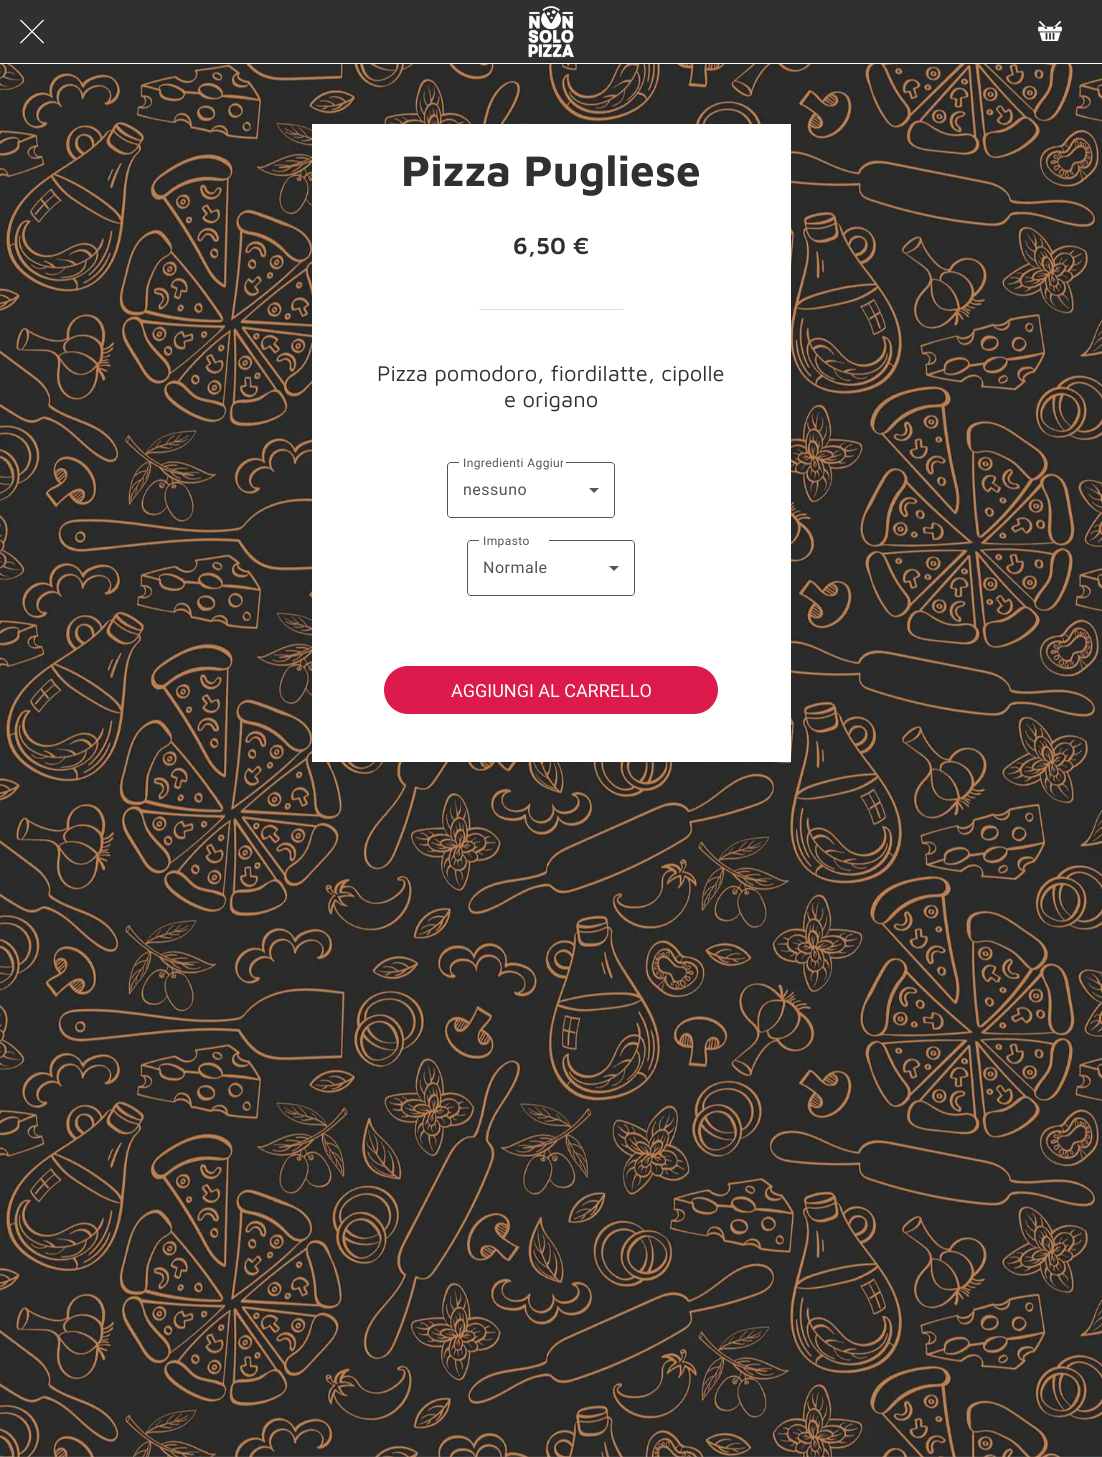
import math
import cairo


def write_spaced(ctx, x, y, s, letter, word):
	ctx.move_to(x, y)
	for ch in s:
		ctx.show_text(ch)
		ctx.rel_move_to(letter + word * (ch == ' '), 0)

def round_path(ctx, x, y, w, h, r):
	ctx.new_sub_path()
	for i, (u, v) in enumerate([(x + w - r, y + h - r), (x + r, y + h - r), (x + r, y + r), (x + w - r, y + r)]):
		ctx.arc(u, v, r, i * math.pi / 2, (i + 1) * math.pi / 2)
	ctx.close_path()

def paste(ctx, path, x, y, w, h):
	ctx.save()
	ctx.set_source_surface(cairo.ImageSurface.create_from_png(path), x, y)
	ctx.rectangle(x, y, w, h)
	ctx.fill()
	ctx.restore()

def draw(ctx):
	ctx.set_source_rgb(1, 1, 1)
	ctx.paint()
	paste(ctx, 'media/1.png', 0, 64, 1102, 1393)
	ctx.set_source_rgb(0.188, 0.188, 0.188)
	ctx.rectangle(0, 0, 1102, 63)
	ctx.fill()
	paste(ctx, 'media/2.png', 20, 19, 24, 25)
	paste(ctx, 'media/3.png', 528, 6, 46, 52)
	paste(ctx, 'media/4.png', 1038, 21, 24, 20)
	ctx.set_source_rgb(1, 1, 1)
	ctx.rectangle(312, 124, 479, 638)
	ctx.fill()
	ctx.select_font_face('Maven Pro', cairo.FONT_SLANT_NORMAL, cairo.FONT_WEIGHT_BOLD)
	ctx.set_font_size(44)
	ctx.set_source_rgb(0.188, 0.188, 0.188)
	ctx.move_to(401, 186)
	ctx.show_text('Pizza Pugliese')
	ctx.select_font_face('Maven Pro SemiBold')
	ctx.set_font_size(24)
	ctx.move_to(513, 254)
	ctx.show_text('6,50 €')
	ctx.set_source_rgb(0.867, 0.867, 0.867)
	ctx.rectangle(479, 309, 144, 1)
	ctx.fill()
	ctx.select_font_face('Maven Pro')
	ctx.set_font_size(22)
	ctx.set_source_rgb(0.188, 0.188, 0.188)
	ctx.move_to(377, 381)
	ctx.show_text('Pizza pomodoro, fiordilatte, cipolle')
	ctx.move_to(504, 407)
	ctx.show_text('e origano')
	ctx.set_source_rgb(0.329, 0.329, 0.329)
	ctx.set_fill_rule(cairo.FILL_RULE_EVEN_ODD)
	ctx.new_path()
	ctx.move_to(451, 462)
	ctx.line_to(459, 462)
	ctx.line_to(459, 518)
	ctx.line_to(451, 518)
	ctx.curve_to(449, 518, 447, 516, 447, 514)
	ctx.line_to(447, 466)
	ctx.curve_to(447, 464, 449, 462, 451, 462)
	ctx.close_path()
	ctx.move_to(451, 463)
	ctx.line_to(459, 463)
	ctx.line_to(459, 517)
	ctx.line_to(451, 517)
	ctx.curve_to(449, 517, 448, 516, 448, 514)
	ctx.line_to(448, 466)
	ctx.curve_to(448, 464, 449, 463, 451, 463)
	ctx.close_path()
	ctx.fill()
	ctx.rectangle(459, 517, 107, 1)
	ctx.fill()
	ctx.save()
	ctx.set_fill_rule(cairo.FILL_RULE_WINDING)
	ctx.rectangle(463, 455, 100, 15)
	ctx.clip()
	ctx.select_font_face('Roboto')
	ctx.set_font_size(12)
	write_spaced(ctx, 463, 467, 'Ingredienti Aggiun', 0.4, 0)
	ctx.restore()
	ctx.set_fill_rule(cairo.FILL_RULE_WINDING)
	ctx.new_path()
	ctx.move_to(589, 488)
	ctx.line_to(594, 493)
	ctx.line_to(599, 488)
	ctx.close_path()
	ctx.fill()
	ctx.set_fill_rule(cairo.FILL_RULE_EVEN_ODD)
	ctx.new_path()
	ctx.move_to(566, 462)
	ctx.line_to(611, 462)
	ctx.curve_to(613, 462, 615, 464, 615, 466)
	ctx.line_to(615, 514)
	ctx.curve_to(615, 516, 613, 518, 611, 518)
	ctx.line_to(566, 518)
	ctx.close_path()
	ctx.move_to(566, 463)
	ctx.line_to(611, 463)
	ctx.curve_to(613, 463, 614, 464, 614, 466)
	ctx.line_to(614, 514)
	ctx.curve_to(614, 516, 613, 517, 611, 517)
	ctx.line_to(566, 517)
	ctx.close_path()
	ctx.fill()
	ctx.select_font_face('Roboto')
	ctx.set_font_size(16)
	write_spaced(ctx, 463, 495, 'nessuno', 0.5, 0)
	ctx.new_path()
	ctx.move_to(471, 540)
	ctx.line_to(479, 540)
	ctx.line_to(479, 596)
	ctx.line_to(471, 596)
	ctx.curve_to(469, 596, 467, 594, 467, 592)
	ctx.line_to(467, 544)
	ctx.curve_to(467, 542, 469, 540, 471, 540)
	ctx.close_path()
	ctx.move_to(471, 541)
	ctx.line_to(479, 541)
	ctx.line_to(479, 595)
	ctx.line_to(471, 595)
	ctx.curve_to(469, 595, 468, 594, 468, 592)
	ctx.line_to(468, 544)
	ctx.curve_to(468, 542, 469, 541, 471, 541)
	ctx.close_path()
	ctx.fill()
	ctx.rectangle(479, 595, 70, 1)
	ctx.fill()
	ctx.set_font_size(12)
	write_spaced(ctx, 483, 545, 'Impasto', 0.4, 0)
	ctx.set_fill_rule(cairo.FILL_RULE_WINDING)
	ctx.new_path()
	ctx.move_to(609, 566)
	ctx.line_to(614, 571)
	ctx.line_to(619, 566)
	ctx.close_path()
	ctx.fill()
	ctx.set_fill_rule(cairo.FILL_RULE_EVEN_ODD)
	ctx.new_path()
	ctx.move_to(549, 540)
	ctx.line_to(631, 540)
	ctx.curve_to(633, 540, 635, 542, 635, 544)
	ctx.line_to(635, 592)
	ctx.curve_to(635, 594, 633, 596, 631, 596)
	ctx.line_to(549, 596)
	ctx.close_path()
	ctx.move_to(549, 541)
	ctx.line_to(631, 541)
	ctx.curve_to(633, 541, 634, 542, 634, 544)
	ctx.line_to(634, 592)
	ctx.curve_to(634, 594, 633, 595, 631, 595)
	ctx.line_to(549, 595)
	ctx.close_path()
	ctx.fill()
	ctx.set_font_size(16)
	write_spaced(ctx, 483, 573, 'Normale', 0.5, 0)
	ctx.set_source_rgb(0.863, 0.106, 0.298)
	round_path(ctx, 384, 666, 334, 48, 24)
	ctx.fill()
	ctx.set_font_size(18)
	ctx.set_source_rgb(1, 1, 1)
	ctx.move_to(451, 697)
	ctx.show_text('AGGIUNGI AL CARRELLO')


surface = cairo.ImageSurface(cairo.FORMAT_RGB24, 1102, 1457)
ctx = cairo.Context(surface)
options = cairo.FontOptions()
options.set_hint_metrics(cairo.HINT_METRICS_OFF)
options.set_hint_style(cairo.HINT_STYLE_NONE)
ctx.set_font_options(options)
ctx.set_miter_limit(4)
draw(ctx)
surface.write_to_png('image.png')
